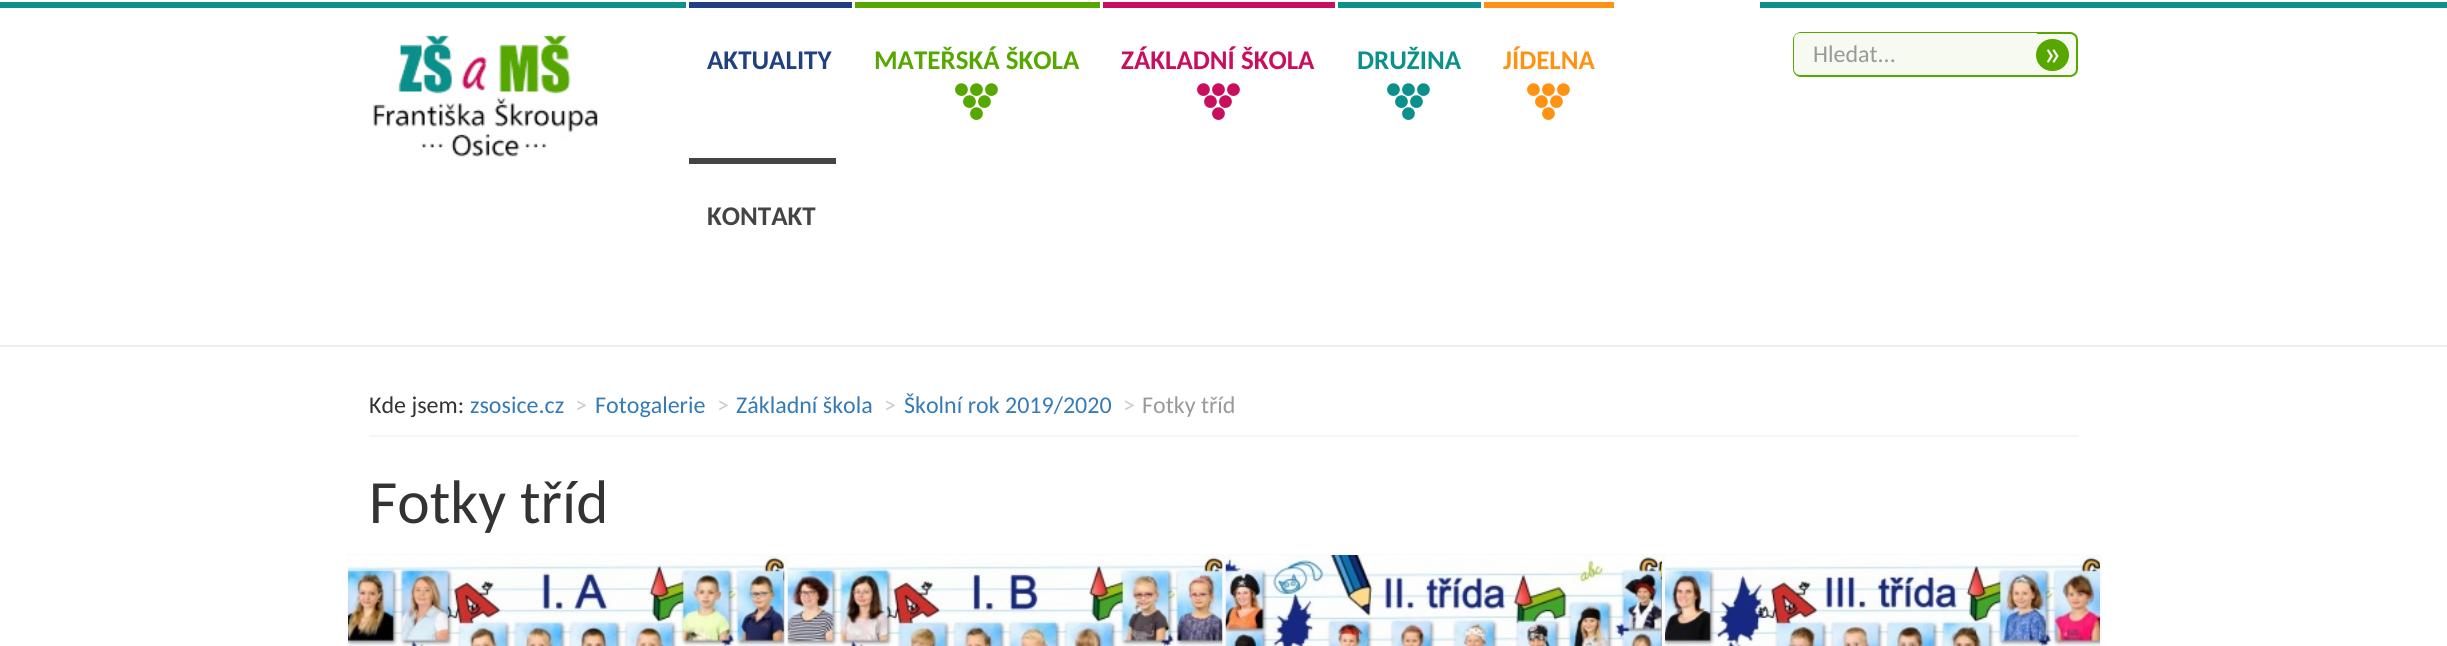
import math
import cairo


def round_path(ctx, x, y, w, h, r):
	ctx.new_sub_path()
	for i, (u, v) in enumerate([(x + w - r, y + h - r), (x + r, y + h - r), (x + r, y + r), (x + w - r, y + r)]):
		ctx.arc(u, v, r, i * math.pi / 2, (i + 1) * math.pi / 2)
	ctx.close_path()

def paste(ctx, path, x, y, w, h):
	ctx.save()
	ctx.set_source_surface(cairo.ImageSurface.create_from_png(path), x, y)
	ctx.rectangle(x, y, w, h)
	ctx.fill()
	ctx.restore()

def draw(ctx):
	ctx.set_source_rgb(1, 1, 1)
	ctx.paint()
	ctx.set_source_rgb(0.043, 0.565, 0.545)
	ctx.rectangle(0, 2, 2447, 6)
	ctx.fill()
	paste(ctx, 'media/1.png', 373, 35, 225, 122)
	ctx.set_source_rgb(1, 1, 1)
	ctx.rectangle(686, 2, 1074, 6)
	ctx.fill()
	ctx.set_source_rgb(0.122, 0.255, 0.506)
	ctx.rectangle(689, 2, 163, 6)
	ctx.fill()
	ctx.select_font_face('Carlito', cairo.FONT_SLANT_NORMAL, cairo.FONT_WEIGHT_BOLD)
	ctx.set_font_size(27)
	ctx.move_to(707, 69)
	ctx.show_text('AKTUALITY')
	ctx.set_source_rgb(0.337, 0.655, 0)
	ctx.rectangle(855, 2, 245, 6)
	ctx.fill()
	ctx.move_to(874, 69)
	ctx.show_text('MATEŘSKÁ ŠKOLA')
	ctx.set_font_size(30)
	for x, y, s in [
		(954, 98, '•••'),
		(962, 110, '••'),
		(969, 122, '•'),
	]:
		ctx.move_to(x, y)
		ctx.show_text(s)
	ctx.set_source_rgb(0.788, 0.055, 0.365)
	ctx.rectangle(1103, 2, 232, 6)
	ctx.fill()
	ctx.set_font_size(27)
	ctx.move_to(1121, 69)
	ctx.show_text('ZÁKLADNÍ ŠKOLA')
	ctx.set_font_size(30)
	for x, y, s in [
		(1196, 98, '•••'),
		(1203, 110, '••'),
		(1211, 122, '•'),
	]:
		ctx.move_to(x, y)
		ctx.show_text(s)
	ctx.set_source_rgb(0.043, 0.565, 0.545)
	ctx.rectangle(1338, 2, 143, 6)
	ctx.fill()
	ctx.set_font_size(27)
	ctx.move_to(1357, 69)
	ctx.show_text('DRUŽINA')
	ctx.set_font_size(30)
	for x, y, s in [
		(1386, 98, '•••'),
		(1394, 110, '••'),
		(1401, 122, '•'),
	]:
		ctx.move_to(x, y)
		ctx.show_text(s)
	ctx.set_source_rgb(1, 0.573, 0.071)
	ctx.rectangle(1484, 2, 130, 6)
	ctx.fill()
	ctx.set_font_size(27)
	ctx.move_to(1503, 69)
	ctx.show_text('JÍDELNA')
	ctx.set_font_size(30)
	for x, y, s in [
		(1526, 98, '•••'),
		(1534, 110, '••'),
		(1541, 122, '•'),
	]:
		ctx.move_to(x, y)
		ctx.show_text(s)
	ctx.set_source_rgb(0.267, 0.267, 0.267)
	ctx.rectangle(689, 158, 147, 6)
	ctx.fill()
	ctx.set_font_size(27)
	ctx.move_to(707, 225)
	ctx.show_text('KONTAKT')
	ctx.set_source_rgb(0.961, 0.98, 0.941)
	round_path(ctx, 1794, 33, 283, 43, 7)
	ctx.fill_preserve()
	ctx.set_source_rgb(0.337, 0.655, 0)
	ctx.stroke()
	ctx.set_source_rgb(0.961, 0.98, 0.941)
	ctx.new_path()
	ctx.move_to(1800, 33)
	ctx.line_to(2037, 33)
	ctx.line_to(2037, 75)
	ctx.line_to(1800, 75)
	ctx.curve_to(1796.5, 75, 1794, 72.5, 1794, 69)
	ctx.line_to(1794, 39)
	ctx.curve_to(1794, 35.5, 1796.5, 33, 1800, 33)
	ctx.close_path()
	ctx.fill()
	ctx.select_font_face('Carlito')
	ctx.set_font_size(24)
	ctx.set_source_rgb(0.6, 0.6, 0.6)
	ctx.move_to(1813, 62)
	ctx.show_text('Hledat...')
	ctx.set_source_rgb(0.337, 0.655, 0)
	round_path(ctx, 2037, 40, 31, 30, 15)
	ctx.fill_preserve()
	ctx.stroke()
	ctx.set_font_size(36)
	ctx.set_source_rgb(1, 1, 1)
	ctx.move_to(2043, 65)
	ctx.show_text('»')
	ctx.set_source_rgb(0.933, 0.933, 0.933)
	ctx.rectangle(0, 345, 2447, 2)
	ctx.fill()
	ctx.set_source_rgb(0.961, 0.961, 0.961)
	ctx.rectangle(369, 435, 1710, 2)
	ctx.fill()
	ctx.set_font_size(24)
	ctx.set_source_rgb(0.2, 0.2, 0.2)
	ctx.move_to(369, 413)
	ctx.show_text('Kde jsem:')
	ctx.set_source_rgb(0.2, 0.478, 0.718)
	ctx.move_to(470, 413)
	ctx.show_text('zsosice.cz')
	ctx.set_source_rgb(0.8, 0.8, 0.8)
	ctx.move_to(575, 413)
	ctx.show_text('>')
	ctx.set_source_rgb(0.2, 0.478, 0.718)
	ctx.move_to(595, 413)
	ctx.show_text('Fotogalerie')
	ctx.set_source_rgb(0.8, 0.8, 0.8)
	ctx.move_to(717, 413)
	ctx.show_text('>')
	ctx.set_source_rgb(0.2, 0.478, 0.718)
	ctx.move_to(736, 413)
	ctx.show_text('Základní škola')
	ctx.set_source_rgb(0.8, 0.8, 0.8)
	ctx.move_to(884, 413)
	ctx.show_text('>')
	ctx.set_source_rgb(0.2, 0.478, 0.718)
	ctx.move_to(904, 413)
	ctx.show_text('Školní rok 2019/2020')
	ctx.set_source_rgb(0.8, 0.8, 0.8)
	ctx.move_to(1123, 413)
	ctx.show_text('>')
	ctx.set_source_rgb(0.6, 0.6, 0.6)
	ctx.move_to(1142, 413)
	ctx.show_text('Fotky tříd')
	ctx.set_font_size(61.5)
	ctx.set_source_rgb(0.2, 0.2, 0.2)
	ctx.move_to(369, 523)
	ctx.show_text('Fotky tříd')
	ctx.rectangle(348, 555, 437, 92)
	ctx.set_source_rgb(0.98, 0.98, 0.98)
	ctx.stroke()
	paste(ctx, 'media/2.png', 348, 555, 437, 91)
	ctx.rectangle(787, 555, 436, 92)
	ctx.stroke()
	paste(ctx, 'media/3.png', 787, 555, 436, 91)
	ctx.rectangle(1225, 555, 438, 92)
	ctx.stroke()
	paste(ctx, 'media/4.png', 1225, 555, 437, 91)
	ctx.rectangle(1665, 555, 436, 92)
	ctx.stroke()
	paste(ctx, 'media/5.png', 1665, 555, 435, 91)


surface = cairo.ImageSurface(cairo.FORMAT_RGB24, 2447, 646)
ctx = cairo.Context(surface)
options = cairo.FontOptions()
options.set_hint_metrics(cairo.HINT_METRICS_OFF)
options.set_hint_style(cairo.HINT_STYLE_NONE)
ctx.set_font_options(options)
ctx.set_miter_limit(4)
draw(ctx)
surface.write_to_png('image.png')
